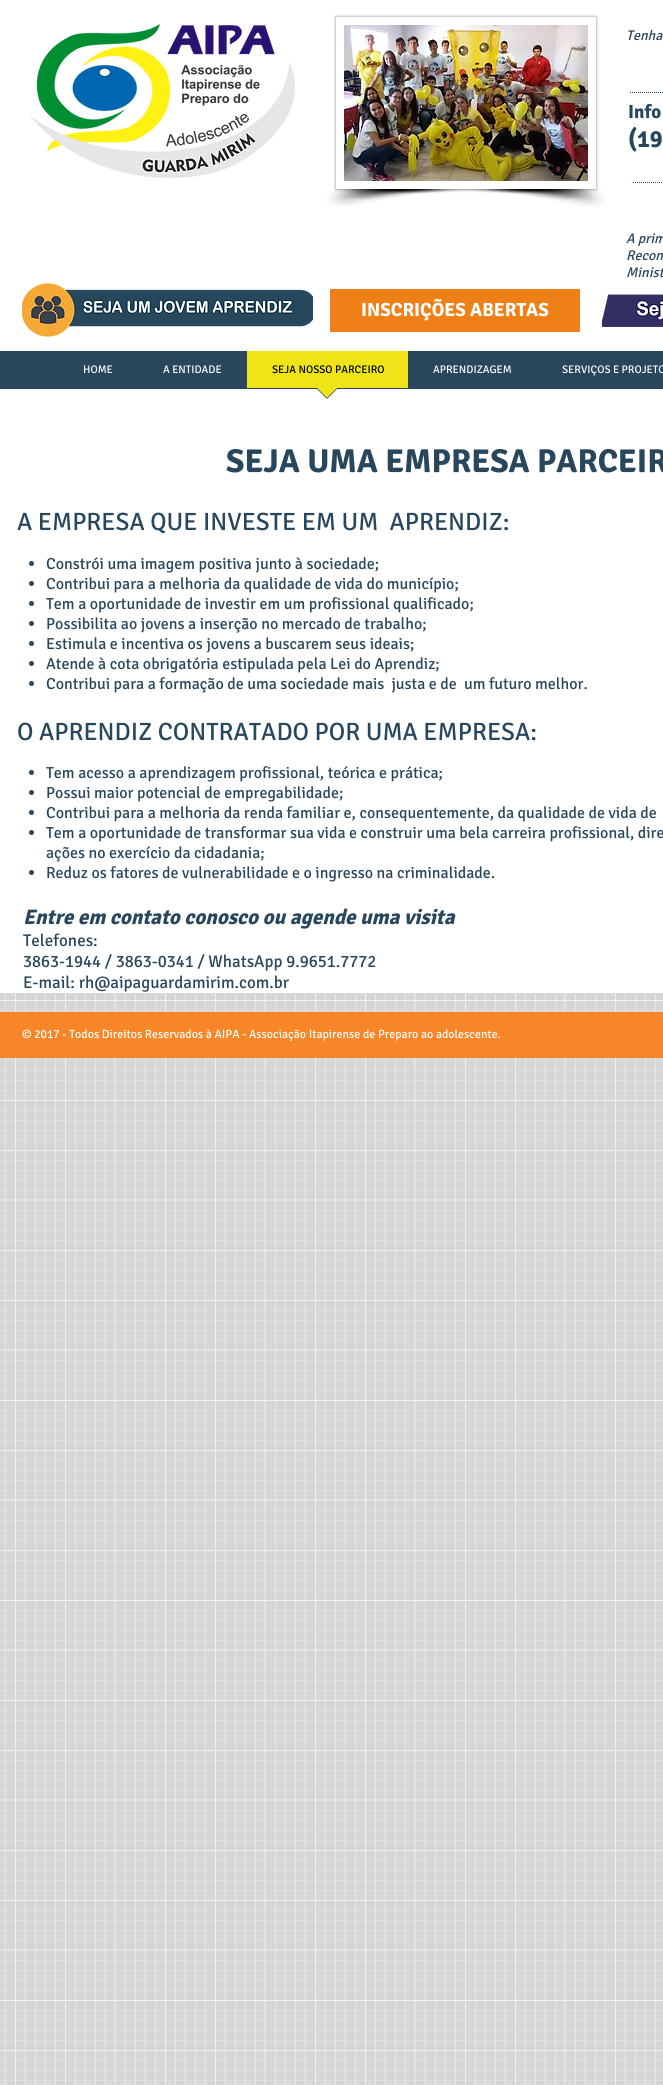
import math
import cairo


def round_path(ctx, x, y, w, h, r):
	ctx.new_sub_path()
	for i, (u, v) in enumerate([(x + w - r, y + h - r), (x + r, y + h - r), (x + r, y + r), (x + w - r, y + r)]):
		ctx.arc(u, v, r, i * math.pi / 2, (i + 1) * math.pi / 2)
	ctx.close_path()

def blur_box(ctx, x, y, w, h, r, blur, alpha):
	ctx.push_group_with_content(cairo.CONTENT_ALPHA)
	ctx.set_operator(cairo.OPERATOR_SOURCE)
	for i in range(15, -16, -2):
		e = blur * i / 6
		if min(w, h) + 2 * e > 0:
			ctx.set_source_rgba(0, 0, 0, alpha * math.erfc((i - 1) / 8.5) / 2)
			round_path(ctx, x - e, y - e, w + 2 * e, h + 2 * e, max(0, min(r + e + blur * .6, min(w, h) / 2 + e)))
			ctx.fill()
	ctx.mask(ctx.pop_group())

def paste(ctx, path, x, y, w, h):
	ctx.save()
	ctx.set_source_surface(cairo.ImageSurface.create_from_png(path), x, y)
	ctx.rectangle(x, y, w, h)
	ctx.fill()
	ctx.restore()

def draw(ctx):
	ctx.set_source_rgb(0.839, 0.839, 0.839)
	ctx.paint()
	ctx.set_source_rgb(1, 1, 1)
	ctx.rectangle(0, 0, 663, 993)
	ctx.fill()
	paste(ctx, 'media/1.png', 29, 24, 266, 154)
	ctx.save()
	ctx.set_fill_rule(cairo.FILL_RULE_EVEN_ODD)
	ctx.new_path()
	ctx.move_to(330, 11)
	ctx.line_to(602, 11)
	ctx.line_to(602, 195)
	ctx.line_to(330, 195)
	ctx.close_path()
	ctx.move_to(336, 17)
	ctx.line_to(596, 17)
	ctx.line_to(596, 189)
	ctx.line_to(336, 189)
	ctx.close_path()
	ctx.clip()
	ctx.set_source_rgb(0, 0, 0)
	blur_box(ctx, 336, 17, 260, 172, 0, 1.5, 0.5)
	ctx.restore()
	paste(ctx, 'media/2.png', 344, 25, 244, 156)
	paste(ctx, 'media/3.png', 327, 189, 154, 18)
	paste(ctx, 'media/4.png', 454, 189, 151, 18)
	ctx.select_font_face('Signika', cairo.FONT_SLANT_ITALIC)
	ctx.set_font_size(14)
	ctx.set_source_rgb(0.157, 0.278, 0.365)
	ctx.move_to(626, 40)
	ctx.show_text('Tenha')
	ctx.new_path()
	ctx.move_to(630, 92.5)
	ctx.line_to(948, 92.5)
	ctx.set_line_width(1)
	ctx.set_dash([1, 1])
	ctx.stroke()
	ctx.select_font_face('Signika', cairo.FONT_SLANT_NORMAL, cairo.FONT_WEIGHT_BOLD)
	ctx.set_font_size(19)
	ctx.move_to(628, 118)
	ctx.show_text('Info')
	ctx.set_font_size(24)
	ctx.move_to(628, 147)
	ctx.show_text('(19')
	ctx.new_path()
	ctx.move_to(633, 182.5)
	ctx.line_to(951, 182.5)
	ctx.stroke()
	ctx.select_font_face('Signika', cairo.FONT_SLANT_ITALIC)
	ctx.set_font_size(14)
	for x, y, s in [
		(626, 243, 'A prim'),
		(626, 260, 'Recon'),
		(626, 277, 'Minist'),
	]:
		ctx.move_to(x, y)
		ctx.show_text(s)
	paste(ctx, 'media/5.png', 22, 283, 291, 54)
	ctx.set_source_rgb(0.937, 0.502, 0.09)
	ctx.rectangle(330, 289, 250, 43)
	ctx.fill()
	ctx.select_font_face('Signika', cairo.FONT_SLANT_NORMAL, cairo.FONT_WEIGHT_BOLD)
	ctx.set_font_size(19)
	ctx.set_source_rgb(1, 1, 1)
	ctx.move_to(361, 316)
	ctx.show_text('INSCRIÇÕES ABERTAS')
	paste(ctx, 'media/6.png', 602, 294, 61, 33)
	ctx.set_source_rgb(0.157, 0.278, 0.365)
	ctx.rectangle(0, 351, 663, 38)
	ctx.fill()
	ctx.select_font_face('Signika')
	ctx.set_font_size(11)
	ctx.set_source_rgb(1, 1, 1)
	ctx.move_to(83, 373)
	ctx.show_text('HOME')
	ctx.move_to(163, 373)
	ctx.show_text('A ENTIDADE')
	ctx.set_source_rgb(0.937, 0.894, 0.09)
	ctx.rectangle(247, 351, 161, 37)
	ctx.fill()
	ctx.set_source_rgb(0, 0, 0)
	ctx.move_to(272, 373)
	ctx.show_text('SEJA NOSSO PARCEIRO')
	ctx.set_source_rgb(0.157, 0.278, 0.365)
	ctx.new_path()
	ctx.move_to(316, 388)
	ctx.line_to(338, 388)
	ctx.line_to(327, 399)
	ctx.close_path()
	ctx.fill()
	ctx.set_source_rgb(0.937, 0.894, 0.09)
	ctx.new_path()
	ctx.move_to(317, 388)
	ctx.line_to(337, 388)
	ctx.line_to(327, 398)
	ctx.close_path()
	ctx.fill()
	ctx.set_source_rgb(1, 1, 1)
	ctx.move_to(433, 373)
	ctx.show_text('APRENDIZAGEM')
	ctx.move_to(562, 373)
	ctx.show_text('SERVIÇOS E PROJETO')
	ctx.select_font_face('Signika', cairo.FONT_SLANT_NORMAL, cairo.FONT_WEIGHT_BOLD)
	ctx.set_font_size(33)
	ctx.set_source_rgb(0.157, 0.278, 0.365)
	ctx.move_to(226, 472)
	ctx.show_text('SEJA UMA EMPRESA PARCEIR')
	ctx.select_font_face('Signika')
	ctx.set_font_size(25)
	ctx.move_to(17, 530)
	ctx.show_text('A EMPRESA QUE INVESTE EM UM  APRENDIZ:')
	ctx.new_path()
	ctx.arc(31.5, 563.5, 2.5, 0, 2 * math.pi)
	ctx.fill()
	ctx.set_font_size(16)
	ctx.move_to(46, 569)
	ctx.show_text('Constrói uma imagem positiva junto à sociedade;')
	ctx.new_path()
	ctx.arc(31.5, 583.5, 2.5, 0, 2 * math.pi)
	ctx.fill()
	ctx.move_to(46, 589)
	ctx.show_text('Contribui para a melhoria da qualidade de vida do município;')
	ctx.new_path()
	ctx.arc(31.5, 603.5, 2.5, 0, 2 * math.pi)
	ctx.fill()
	ctx.move_to(46, 609)
	ctx.show_text('Tem a oportunidade de investir em um profissional qualificado;')
	ctx.new_path()
	ctx.arc(31.5, 623.5, 2.5, 0, 2 * math.pi)
	ctx.fill()
	ctx.move_to(46, 629)
	ctx.show_text('Possibilita ao jovens a inserção no mercado de trabalho;')
	ctx.new_path()
	ctx.arc(31.5, 643.5, 2.5, 0, 2 * math.pi)
	ctx.fill()
	ctx.move_to(46, 649)
	ctx.show_text('Estimula e incentiva os jovens a buscarem seus ideais;')
	ctx.new_path()
	ctx.arc(31.5, 663.5, 2.5, 0, 2 * math.pi)
	ctx.fill()
	ctx.move_to(46, 669)
	ctx.show_text('Atende à cota obrigatória estipulada pela Lei do Aprendiz;')
	ctx.new_path()
	ctx.arc(31.5, 683.5, 2.5, 0, 2 * math.pi)
	ctx.fill()
	ctx.move_to(46, 689)
	ctx.show_text('Contribui para a formação de uma sociedade mais  justa e de  um futuro melhor.')
	ctx.set_font_size(25)
	ctx.move_to(17, 740)
	ctx.show_text('O APRENDIZ CONTRATADO POR UMA EMPRESA:')
	ctx.new_path()
	ctx.arc(31.5, 772.5, 2.5, 0, 2 * math.pi)
	ctx.fill()
	ctx.set_font_size(16)
	ctx.move_to(46, 778)
	ctx.show_text('Tem acesso a aprendizagem profissional, teórica e prática;')
	ctx.new_path()
	ctx.arc(31.5, 792.5, 2.5, 0, 2 * math.pi)
	ctx.fill()
	ctx.move_to(46, 798)
	ctx.show_text('Possui maior potencial de empregabilidade;')
	ctx.new_path()
	ctx.arc(31.5, 812.5, 2.5, 0, 2 * math.pi)
	ctx.fill()
	ctx.move_to(46, 818)
	ctx.show_text('Contribui para a melhoria da renda familiar e, consequentemente, da qualidade de vida de')
	ctx.new_path()
	ctx.arc(31.5, 832.5, 2.5, 0, 2 * math.pi)
	ctx.fill()
	ctx.move_to(46, 838)
	ctx.show_text('Tem a oportunidade de transformar sua vida e construir uma bela carreira profissional, dire')
	ctx.move_to(46, 858)
	ctx.show_text('ações no exercício da cidadania;')
	ctx.new_path()
	ctx.arc(31.5, 872.5, 2.5, 0, 2 * math.pi)
	ctx.fill()
	ctx.move_to(46, 878)
	ctx.show_text('Reduz os fatores de vulnerabilidade e o ingresso na criminalidade.')
	ctx.select_font_face('Signika', cairo.FONT_SLANT_ITALIC, cairo.FONT_WEIGHT_BOLD)
	ctx.set_font_size(21)
	ctx.move_to(23, 924)
	ctx.show_text('Entre em contato conosco ou agende uma visita')
	ctx.select_font_face('Signika')
	ctx.set_font_size(17)
	for x, y, s in [
		(23, 946, 'Telefones:'),
		(23, 967, '3863-1944 / 3863-0341 / WhatsApp 9.9651.7772'),
		(23, 988, 'E-mail: rh@aipaguardamirim.com.br'),
	]:
		ctx.move_to(x, y)
		ctx.show_text(s)
	paste(ctx, 'media/7.png', 0, 993, 663, 1092)
	ctx.set_source_rgb(0.965, 0.525, 0.161)
	ctx.rectangle(0, 1012, 663, 46)
	ctx.fill()
	ctx.set_font_size(12)
	ctx.set_source_rgb(1, 1, 1)
	ctx.move_to(22, 1038)
	ctx.show_text('© 2017 - Todos Direitos Reservados à AIPA - Associação Itapirense de Preparo ao adolescente.')


surface = cairo.ImageSurface(cairo.FORMAT_RGB24, 663, 2085)
ctx = cairo.Context(surface)
options = cairo.FontOptions()
options.set_hint_metrics(cairo.HINT_METRICS_OFF)
options.set_hint_style(cairo.HINT_STYLE_NONE)
ctx.set_font_options(options)
ctx.set_miter_limit(4)
draw(ctx)
surface.write_to_png('image.png')
